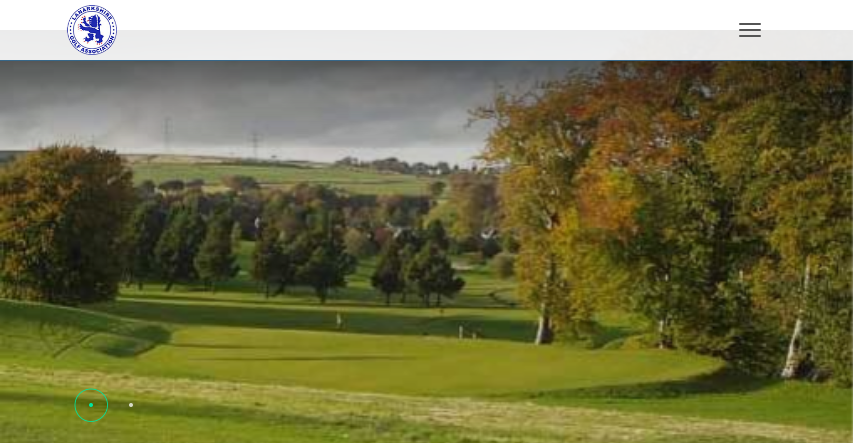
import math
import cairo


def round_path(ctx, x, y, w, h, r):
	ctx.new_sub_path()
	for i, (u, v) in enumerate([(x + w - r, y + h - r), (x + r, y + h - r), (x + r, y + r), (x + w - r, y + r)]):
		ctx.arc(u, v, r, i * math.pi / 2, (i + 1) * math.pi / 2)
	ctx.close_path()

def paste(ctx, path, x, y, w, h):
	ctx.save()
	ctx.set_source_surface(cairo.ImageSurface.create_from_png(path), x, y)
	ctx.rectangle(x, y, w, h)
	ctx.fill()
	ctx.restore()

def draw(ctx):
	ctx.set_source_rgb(1, 1, 1)
	ctx.paint()
	paste(ctx, 'media/2.png', 0, 30, 853, 413)
	gradient = cairo.LinearGradient(427, 30, 427, 151)
	gradient.add_color_stop_rgba(0, 0.008, 0.027, 0.039, 0.75)
	gradient.add_color_stop_rgba(1, 0.008, 0.027, 0.039, 0)
	ctx.set_source(gradient)
	ctx.rectangle(0, 30, 853, 118)
	ctx.fill()
	ctx.set_source_rgba(1, 1, 1, 0.9)
	ctx.rectangle(0, 30, 853, 30)
	ctx.fill()
	ctx.set_source_rgb(0.216, 0.404, 0.533)
	ctx.rectangle(0, 60, 853, 1)
	ctx.fill()
	paste(ctx, 'media/1.png', 66, 5, 51, 50)
	ctx.set_source_rgb(0.333, 0.333, 0.333)
	round_path(ctx, 739, 23, 22, 2, 1)
	ctx.fill()
	round_path(ctx, 739, 29, 22, 2, 1)
	ctx.fill()
	round_path(ctx, 739, 35, 22, 2, 1)
	ctx.fill()
	ctx.set_source_rgb(0, 0.902, 0.631)
	ctx.arc(91, 405, 2, 0, 2 * math.pi)
	ctx.fill()
	ctx.new_path()
	ctx.move_to(75, 405)
	ctx.curve_to(75, 396, 82, 389, 91, 389)
	ctx.curve_to(100, 389, 107.5, 396, 107.5, 405)
	ctx.curve_to(107.5, 414, 100, 421.5, 91, 421.5)
	ctx.curve_to(82, 421.5, 75, 414, 75, 405)
	ctx.set_line_width(0.8)
	ctx.stroke()
	ctx.set_source_rgba(1, 1, 1, 0.75)
	ctx.arc(131, 405, 2, 0, 2 * math.pi)
	ctx.fill()


surface = cairo.ImageSurface(cairo.FORMAT_RGB24, 853, 443)
ctx = cairo.Context(surface)
options = cairo.FontOptions()
options.set_hint_metrics(cairo.HINT_METRICS_OFF)
options.set_hint_style(cairo.HINT_STYLE_NONE)
ctx.set_font_options(options)
ctx.set_miter_limit(4)
draw(ctx)
surface.write_to_png('image.png')
